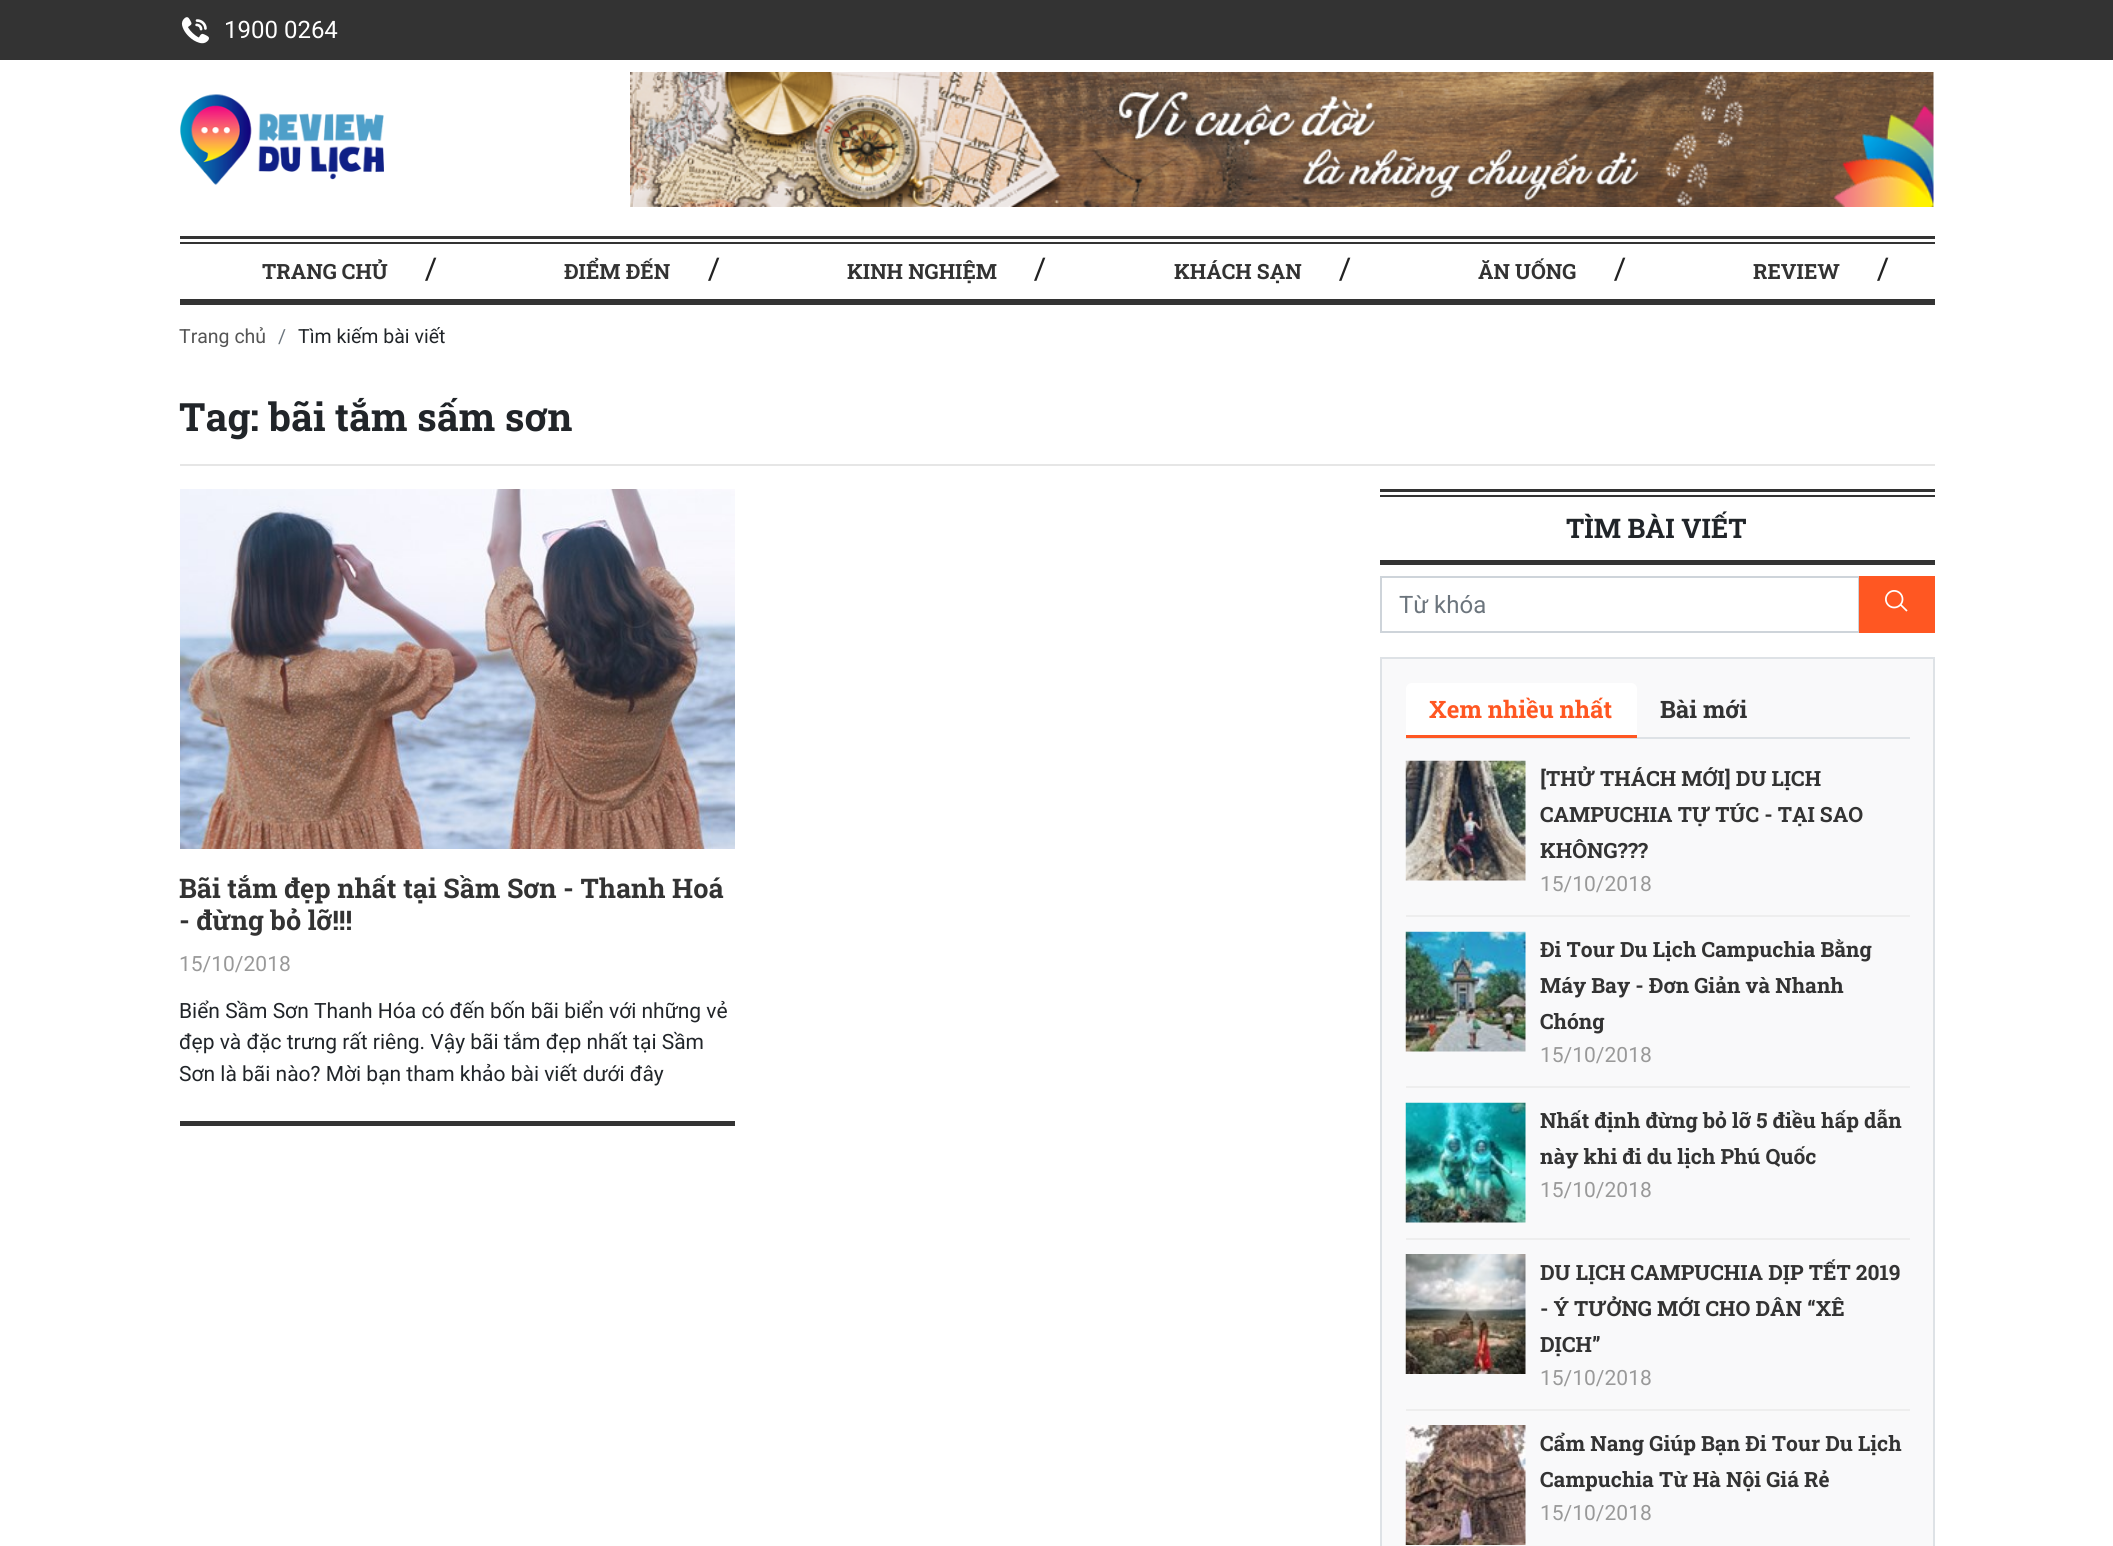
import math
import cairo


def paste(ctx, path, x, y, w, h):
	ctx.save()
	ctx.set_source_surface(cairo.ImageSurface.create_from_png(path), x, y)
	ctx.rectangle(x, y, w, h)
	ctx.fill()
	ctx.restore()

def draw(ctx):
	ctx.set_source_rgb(1, 1, 1)
	ctx.paint()
	ctx.set_source_rgb(0.2, 0.2, 0.2)
	ctx.rectangle(0, 0, 2113, 60)
	ctx.fill()
	paste(ctx, 'media/1.png', 181, 17, 28, 27)
	ctx.select_font_face('Roboto')
	ctx.set_font_size(24)
	ctx.set_source_rgb(1, 1, 1)
	ctx.move_to(224, 38)
	ctx.show_text('1900 0264')
	paste(ctx, 'media/2.png', 180, 94, 204, 91)
	paste(ctx, 'media/3.png', 630, 72, 1304, 135)
	ctx.set_source_rgb(0.2, 0.2, 0.2)
	ctx.rectangle(180, 242, 1755, 2)
	ctx.rectangle(180, 299, 1755, 6)
	ctx.rectangle(180, 236, 1755, 3)
	ctx.fill()
	ctx.select_font_face('Roboto Slab', cairo.FONT_SLANT_NORMAL, cairo.FONT_WEIGHT_BOLD)
	ctx.set_font_size(21)
	ctx.move_to(262, 279)
	ctx.show_text('TRANG CHỦ')
	ctx.select_font_face('Roboto Slab')
	ctx.set_font_size(30)
	ctx.set_source_rgb(0.133, 0.133, 0.133)
	ctx.move_to(425, 279)
	ctx.show_text('/')
	ctx.select_font_face('Roboto Slab', cairo.FONT_SLANT_NORMAL, cairo.FONT_WEIGHT_BOLD)
	ctx.set_font_size(21)
	ctx.set_source_rgb(0.2, 0.2, 0.2)
	ctx.move_to(564, 279)
	ctx.show_text('ĐIỂM ĐẾN')
	ctx.select_font_face('Roboto Slab')
	ctx.set_font_size(30)
	ctx.set_source_rgb(0.133, 0.133, 0.133)
	ctx.move_to(708, 279)
	ctx.show_text('/')
	ctx.select_font_face('Roboto Slab', cairo.FONT_SLANT_NORMAL, cairo.FONT_WEIGHT_BOLD)
	ctx.set_font_size(21)
	ctx.set_source_rgb(0.2, 0.2, 0.2)
	ctx.move_to(847, 279)
	ctx.show_text('KINH NGHIỆM')
	ctx.select_font_face('Roboto Slab')
	ctx.set_font_size(30)
	ctx.set_source_rgb(0.133, 0.133, 0.133)
	ctx.move_to(1034, 279)
	ctx.show_text('/')
	ctx.select_font_face('Roboto Slab', cairo.FONT_SLANT_NORMAL, cairo.FONT_WEIGHT_BOLD)
	ctx.set_font_size(21)
	ctx.set_source_rgb(0.2, 0.2, 0.2)
	ctx.move_to(1174, 279)
	ctx.show_text('KHÁCH SẠN')
	ctx.select_font_face('Roboto Slab')
	ctx.set_font_size(30)
	ctx.set_source_rgb(0.133, 0.133, 0.133)
	ctx.move_to(1339, 279)
	ctx.show_text('/')
	ctx.select_font_face('Roboto Slab', cairo.FONT_SLANT_NORMAL, cairo.FONT_WEIGHT_BOLD)
	ctx.set_font_size(21)
	ctx.set_source_rgb(0.2, 0.2, 0.2)
	ctx.move_to(1478, 279)
	ctx.show_text('ĂN UỐNG')
	ctx.select_font_face('Roboto Slab')
	ctx.set_font_size(30)
	ctx.set_source_rgb(0.133, 0.133, 0.133)
	ctx.move_to(1614, 279)
	ctx.show_text('/')
	ctx.select_font_face('Roboto Slab', cairo.FONT_SLANT_NORMAL, cairo.FONT_WEIGHT_BOLD)
	ctx.set_font_size(21)
	ctx.set_source_rgb(0.2, 0.2, 0.2)
	ctx.move_to(1753, 279)
	ctx.show_text('REVIEW')
	ctx.select_font_face('Roboto Slab')
	ctx.set_font_size(30)
	ctx.set_source_rgb(0.133, 0.133, 0.133)
	ctx.move_to(1877, 279)
	ctx.show_text('/')
	ctx.select_font_face('Roboto')
	ctx.set_font_size(19.5)
	ctx.set_source_rgb(0.333, 0.333, 0.333)
	ctx.move_to(179, 343)
	ctx.show_text('Trang chủ')
	ctx.set_source_rgb(0.424, 0.459, 0.49)
	ctx.move_to(278, 343)
	ctx.show_text('/')
	ctx.set_source_rgb(0.129, 0.145, 0.161)
	ctx.move_to(298, 343)
	ctx.show_text('Tìm kiếm bài viết')
	ctx.select_font_face('Roboto Slab', cairo.FONT_SLANT_NORMAL, cairo.FONT_WEIGHT_BOLD)
	ctx.set_font_size(39)
	ctx.move_to(179, 431)
	ctx.show_text('Tag: bãi tắm sấm sơn')
	ctx.set_source_rgb(0.902, 0.902, 0.902)
	ctx.rectangle(180, 464, 1755, 2)
	ctx.fill()
	ctx.set_source_rgb(0.2, 0.2, 0.2)
	ctx.rectangle(180, 1121, 555, 5)
	ctx.fill()
	paste(ctx, 'media/4.png', 180, 489, 555, 360)
	ctx.set_font_size(27)
	ctx.move_to(179, 898)
	ctx.show_text('Bãi tắm đẹp nhất tại Sầm Sơn - Thanh Hoá')
	ctx.move_to(179, 930)
	ctx.show_text('- đừng bỏ lỡ!!!')
	ctx.select_font_face('Roboto')
	ctx.set_font_size(21)
	ctx.set_source_rgb(0.6, 0.6, 0.6)
	ctx.move_to(179, 971)
	ctx.show_text('15/10/2018')
	ctx.set_source_rgb(0.129, 0.145, 0.161)
	for x, y, s in [
		(179, 1018, 'Biển Sầm Sơn Thanh Hóa có đến bốn bãi biển với những vẻ'),
		(179, 1049, 'đẹp và đặc trưng rất riêng. Vậy bãi tắm đẹp nhất tại Sầm'),
		(179, 1081, 'Sơn là bãi nào? Mời bạn tham khảo bài viết dưới đây'),
	]:
		ctx.move_to(x, y)
		ctx.show_text(s)
	ctx.set_source_rgb(0.2, 0.2, 0.2)
	ctx.rectangle(1380, 489, 555, 3)
	ctx.rectangle(1380, 495, 555, 2)
	ctx.rectangle(1380, 560, 555, 5)
	ctx.fill()
	ctx.select_font_face('Roboto Slab', cairo.FONT_SLANT_NORMAL, cairo.FONT_WEIGHT_BOLD)
	ctx.set_font_size(27)
	ctx.set_source_rgb(0.129, 0.145, 0.161)
	ctx.move_to(1566, 538)
	ctx.show_text('TÌM BÀI VIẾT')
	ctx.rectangle(1381, 577, 478, 55)
	ctx.set_source_rgb(0.808, 0.831, 0.855)
	ctx.stroke()
	ctx.select_font_face('Roboto')
	ctx.set_font_size(24)
	ctx.set_source_rgb(0.424, 0.459, 0.49)
	ctx.move_to(1399, 613)
	ctx.show_text('Từ khóa')
	ctx.set_source_rgb(1, 0.341, 0.133)
	ctx.rectangle(1859, 576, 76, 57)
	ctx.fill()
	paste(ctx, 'media/5.png', 1885, 590, 23, 22)
	ctx.set_source_rgb(0.973, 0.976, 0.98)
	ctx.rectangle(1381, 658, 553, 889)
	ctx.fill_preserve()
	ctx.set_source_rgb(0.871, 0.886, 0.902)
	ctx.stroke()
	ctx.rectangle(1406, 737, 504, 2)
	ctx.fill()
	ctx.set_source_rgb(1, 1, 1)
	ctx.new_path()
	ctx.move_to(1412, 683)
	ctx.line_to(1631, 683)
	ctx.curve_to(1634.5, 683, 1637, 685.5, 1637, 689)
	ctx.line_to(1637, 738)
	ctx.line_to(1406, 738)
	ctx.line_to(1406, 689)
	ctx.curve_to(1406, 685.5, 1408.5, 683, 1412, 683)
	ctx.close_path()
	ctx.fill()
	ctx.set_source_rgb(1, 0.341, 0.133)
	ctx.rectangle(1406, 735, 231, 3)
	ctx.fill()
	ctx.select_font_face('Roboto Slab', cairo.FONT_SLANT_NORMAL, cairo.FONT_WEIGHT_BOLD)
	ctx.move_to(1429, 718)
	ctx.show_text('Xem nhiều nhất')
	ctx.set_source_rgb(0.2, 0.2, 0.2)
	ctx.move_to(1660, 718)
	ctx.show_text('Bài mới')
	ctx.set_source_rgb(0.933, 0.933, 0.933)
	ctx.rectangle(1406, 915, 504, 2)
	ctx.fill()
	paste(ctx, 'media/6.png', 1405, 760, 121, 121)
	ctx.set_font_size(21)
	ctx.set_source_rgb(0.2, 0.2, 0.2)
	for x, y, s in [
		(1540, 786, '[THỬ THÁCH MỚI] DU LỊCH'),
		(1540, 822, 'CAMPUCHIA TỰ TÚC - TẠI SAO'),
		(1540, 858, 'KHÔNG???'),
	]:
		ctx.move_to(x, y)
		ctx.show_text(s)
	ctx.select_font_face('Roboto')
	ctx.set_source_rgb(0.6, 0.6, 0.6)
	ctx.move_to(1540, 891)
	ctx.show_text('15/10/2018')
	ctx.set_source_rgb(0.933, 0.933, 0.933)
	ctx.rectangle(1406, 1086, 504, 2)
	ctx.fill()
	paste(ctx, 'media/7.png', 1405, 931, 121, 121)
	ctx.select_font_face('Roboto Slab', cairo.FONT_SLANT_NORMAL, cairo.FONT_WEIGHT_BOLD)
	ctx.set_source_rgb(0.2, 0.2, 0.2)
	for x, y, s in [
		(1540, 957, 'Đi Tour Du Lịch Campuchia Bằng'),
		(1540, 993, 'Máy Bay - Đơn Giản và Nhanh'),
		(1540, 1029, 'Chóng'),
	]:
		ctx.move_to(x, y)
		ctx.show_text(s)
	ctx.select_font_face('Roboto')
	ctx.set_source_rgb(0.6, 0.6, 0.6)
	ctx.move_to(1540, 1062)
	ctx.show_text('15/10/2018')
	ctx.set_source_rgb(0.933, 0.933, 0.933)
	ctx.rectangle(1406, 1238, 504, 2)
	ctx.fill()
	paste(ctx, 'media/8.png', 1405, 1102, 121, 121)
	ctx.select_font_face('Roboto Slab', cairo.FONT_SLANT_NORMAL, cairo.FONT_WEIGHT_BOLD)
	ctx.set_source_rgb(0.2, 0.2, 0.2)
	ctx.move_to(1540, 1128)
	ctx.show_text('Nhất định đừng bỏ lỡ 5 điều hấp dẫn')
	ctx.move_to(1540, 1164)
	ctx.show_text('này khi đi du lịch Phú Quốc')
	ctx.select_font_face('Roboto')
	ctx.set_source_rgb(0.6, 0.6, 0.6)
	ctx.move_to(1540, 1197)
	ctx.show_text('15/10/2018')
	ctx.set_source_rgb(0.933, 0.933, 0.933)
	ctx.rectangle(1406, 1409, 504, 2)
	ctx.fill()
	paste(ctx, 'media/9.png', 1405, 1254, 121, 120)
	ctx.select_font_face('Roboto Slab', cairo.FONT_SLANT_NORMAL, cairo.FONT_WEIGHT_BOLD)
	ctx.set_source_rgb(0.2, 0.2, 0.2)
	for x, y, s in [
		(1540, 1280, 'DU LỊCH CAMPUCHIA DỊP TẾT 2019'),
		(1540, 1316, '- Ý TƯỞNG MỚI CHO DÂN “XÊ'),
		(1540, 1352, 'DỊCH”'),
	]:
		ctx.move_to(x, y)
		ctx.show_text(s)
	ctx.select_font_face('Roboto')
	ctx.set_source_rgb(0.6, 0.6, 0.6)
	ctx.move_to(1540, 1385)
	ctx.show_text('15/10/2018')
	paste(ctx, 'media/10.png', 1405, 1425, 121, 120)
	ctx.select_font_face('Roboto Slab', cairo.FONT_SLANT_NORMAL, cairo.FONT_WEIGHT_BOLD)
	ctx.set_source_rgb(0.2, 0.2, 0.2)
	ctx.move_to(1540, 1451)
	ctx.show_text('Cẩm Nang Giúp Bạn Đi Tour Du Lịch')
	ctx.move_to(1540, 1487)
	ctx.show_text('Campuchia Từ Hà Nội Giá Rẻ')
	ctx.select_font_face('Roboto')
	ctx.set_source_rgb(0.6, 0.6, 0.6)
	ctx.move_to(1540, 1520)
	ctx.show_text('15/10/2018')


surface = cairo.ImageSurface(cairo.FORMAT_RGB24, 2113, 1546)
ctx = cairo.Context(surface)
options = cairo.FontOptions()
options.set_hint_metrics(cairo.HINT_METRICS_OFF)
options.set_hint_style(cairo.HINT_STYLE_NONE)
ctx.set_font_options(options)
ctx.set_miter_limit(4)
draw(ctx)
surface.write_to_png('image.png')
